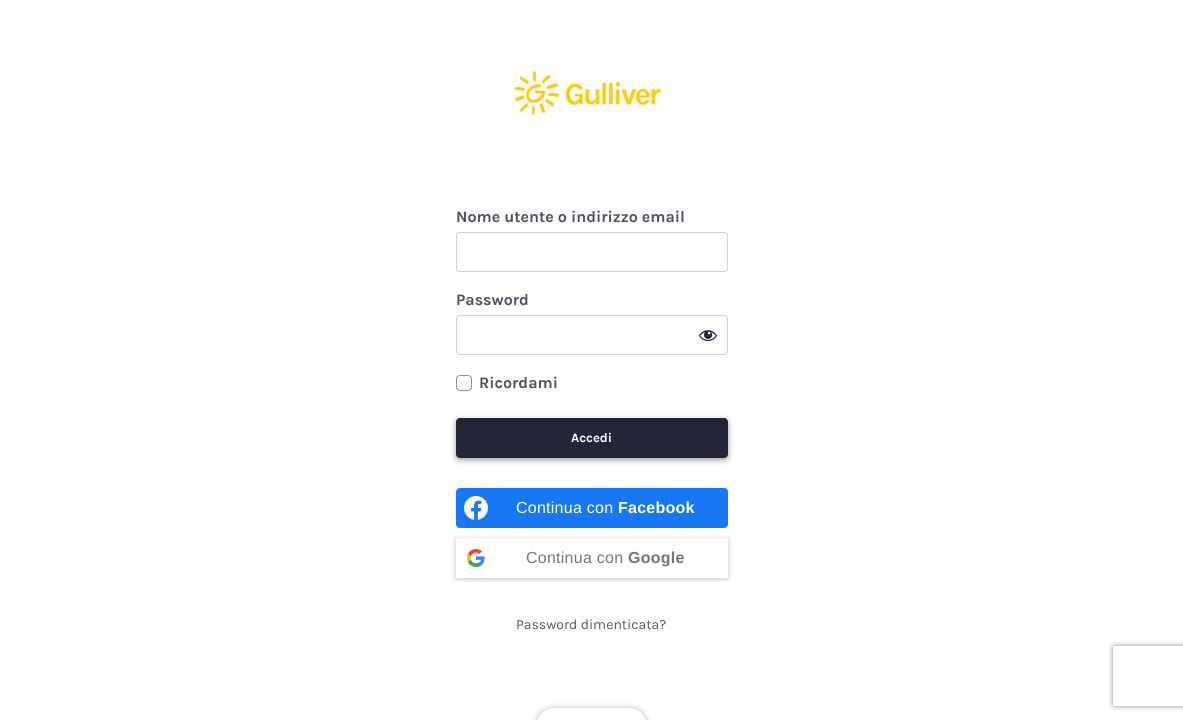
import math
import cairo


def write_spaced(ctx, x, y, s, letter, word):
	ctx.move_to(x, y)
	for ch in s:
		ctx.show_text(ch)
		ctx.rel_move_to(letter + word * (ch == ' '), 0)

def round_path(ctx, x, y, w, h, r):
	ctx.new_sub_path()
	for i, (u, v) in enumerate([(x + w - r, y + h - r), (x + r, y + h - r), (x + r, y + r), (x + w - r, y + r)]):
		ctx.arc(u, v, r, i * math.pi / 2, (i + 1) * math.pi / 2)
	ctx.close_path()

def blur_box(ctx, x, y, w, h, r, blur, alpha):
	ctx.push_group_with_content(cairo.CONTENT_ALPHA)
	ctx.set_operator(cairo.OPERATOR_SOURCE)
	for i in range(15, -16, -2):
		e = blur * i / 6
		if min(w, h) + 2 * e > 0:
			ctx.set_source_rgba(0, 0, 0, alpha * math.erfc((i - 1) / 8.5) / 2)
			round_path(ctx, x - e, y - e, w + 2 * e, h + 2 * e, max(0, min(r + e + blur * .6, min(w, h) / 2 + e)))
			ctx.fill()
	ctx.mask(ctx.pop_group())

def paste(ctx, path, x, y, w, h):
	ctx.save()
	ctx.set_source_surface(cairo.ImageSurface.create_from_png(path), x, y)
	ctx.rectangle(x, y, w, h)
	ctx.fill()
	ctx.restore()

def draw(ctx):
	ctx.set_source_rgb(1, 1, 1)
	ctx.paint()
	paste(ctx, 'media/1.png', 514, 70, 147, 46)
	ctx.select_font_face('Karla', cairo.FONT_SLANT_NORMAL, cairo.FONT_WEIGHT_BOLD)
	ctx.set_font_size(16)
	ctx.set_source_rgb(0.306, 0.314, 0.365)
	ctx.move_to(456, 222)
	ctx.show_text('Nome utente o indirizzo email')
	round_path(ctx, 456.5, 232.5, 271, 39, 3.5)
	ctx.set_source_rgb(0.812, 0.812, 0.812)
	ctx.set_line_width(1)
	ctx.stroke()
	ctx.set_source_rgb(0.306, 0.314, 0.365)
	ctx.move_to(456, 305)
	ctx.show_text('Password')
	round_path(ctx, 456.5, 315.5, 271, 39, 3.5)
	ctx.set_source_rgb(0.812, 0.812, 0.812)
	ctx.stroke()
	paste(ctx, 'media/2.png', 699, 330, 18, 12)
	round_path(ctx, 456.5, 375.5, 15, 15, 3.5)
	ctx.set_source_rgb(0.549, 0.561, 0.58)
	ctx.stroke()
	ctx.set_source_rgb(0.306, 0.314, 0.365)
	ctx.move_to(479, 388)
	ctx.show_text('Ricordami')
	ctx.set_source_rgb(0, 0, 0)
	blur_box(ctx, 456, 420, 272, 40, 4, 3, 0.4)
	ctx.set_source_rgb(0.137, 0.149, 0.216)
	round_path(ctx, 456, 418, 272, 40, 4)
	ctx.fill()
	ctx.set_font_size(13)
	ctx.set_source_rgb(1, 1, 1)
	ctx.move_to(571, 442)
	ctx.show_text('Accedi')
	ctx.set_source_rgb(0.094, 0.467, 0.949)
	round_path(ctx, 456, 488, 272, 40, 4)
	ctx.fill()
	paste(ctx, 'media/3.png', 464, 496, 24, 24)
	ctx.select_font_face('Liberation Sans')
	ctx.set_font_size(16)
	ctx.set_source_rgb(1, 1, 1)
	write_spaced(ctx, 516, 513, 'Continua con', 0.25, 0)
	ctx.select_font_face('Liberation Sans', cairo.FONT_SLANT_NORMAL, cairo.FONT_WEIGHT_BOLD)
	write_spaced(ctx, 618, 513, 'Facebook', 0.25, 0)
	ctx.set_source_rgb(0, 0, 0)
	blur_box(ctx, 456, 539, 272, 40, 1, 2.5, 0.25)
	ctx.set_source_rgb(1, 1, 1)
	round_path(ctx, 456, 538, 272, 40, 1)
	ctx.fill()
	paste(ctx, 'media/4.png', 467, 549, 18, 18)
	ctx.select_font_face('Liberation Sans')
	ctx.set_source_rgb(0.459, 0.459, 0.459)
	write_spaced(ctx, 526, 563, 'Continua con', 0.25, 0)
	ctx.select_font_face('Liberation Sans', cairo.FONT_SLANT_NORMAL, cairo.FONT_WEIGHT_BOLD)
	write_spaced(ctx, 628, 563, 'Google', 0.25, 0)
	ctx.select_font_face('Karla')
	ctx.set_font_size(14)
	ctx.set_source_rgb(0.314, 0.341, 0.369)
	ctx.move_to(516, 629)
	ctx.show_text('Password dimenticata?')
	ctx.set_source_rgb(0, 0, 0)
	blur_box(ctx, 535, 708, 113, 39, 19.5, 3, 0.25)
	ctx.set_source_rgb(1, 1, 1)
	round_path(ctx, 536, 708, 111, 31, 18.5)
	ctx.fill()
	ctx.save()
	ctx.set_fill_rule(cairo.FILL_RULE_EVEN_ODD)
	ctx.new_path()
	ctx.move_to(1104, 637)
	ctx.line_to(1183, 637)
	ctx.line_to(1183, 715)
	ctx.line_to(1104, 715)
	ctx.close_path()
	ctx.move_to(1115, 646)
	ctx.line_to(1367, 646)
	ctx.curve_to(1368, 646, 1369, 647, 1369, 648)
	ctx.line_to(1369, 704)
	ctx.curve_to(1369, 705, 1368, 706, 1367, 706)
	ctx.line_to(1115, 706)
	ctx.curve_to(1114, 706, 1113, 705, 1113, 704)
	ctx.line_to(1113, 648)
	ctx.curve_to(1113, 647, 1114, 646, 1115, 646)
	ctx.close_path()
	ctx.clip()
	ctx.set_source_rgb(0.502, 0.502, 0.502)
	blur_box(ctx, 1113, 646, 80, 60, 2, 2.5, 1)
	ctx.restore()


surface = cairo.ImageSurface(cairo.FORMAT_RGB24, 1183, 720)
ctx = cairo.Context(surface)
options = cairo.FontOptions()
options.set_hint_metrics(cairo.HINT_METRICS_OFF)
options.set_hint_style(cairo.HINT_STYLE_NONE)
ctx.set_font_options(options)
ctx.set_miter_limit(4)
draw(ctx)
surface.write_to_png('image.png')
